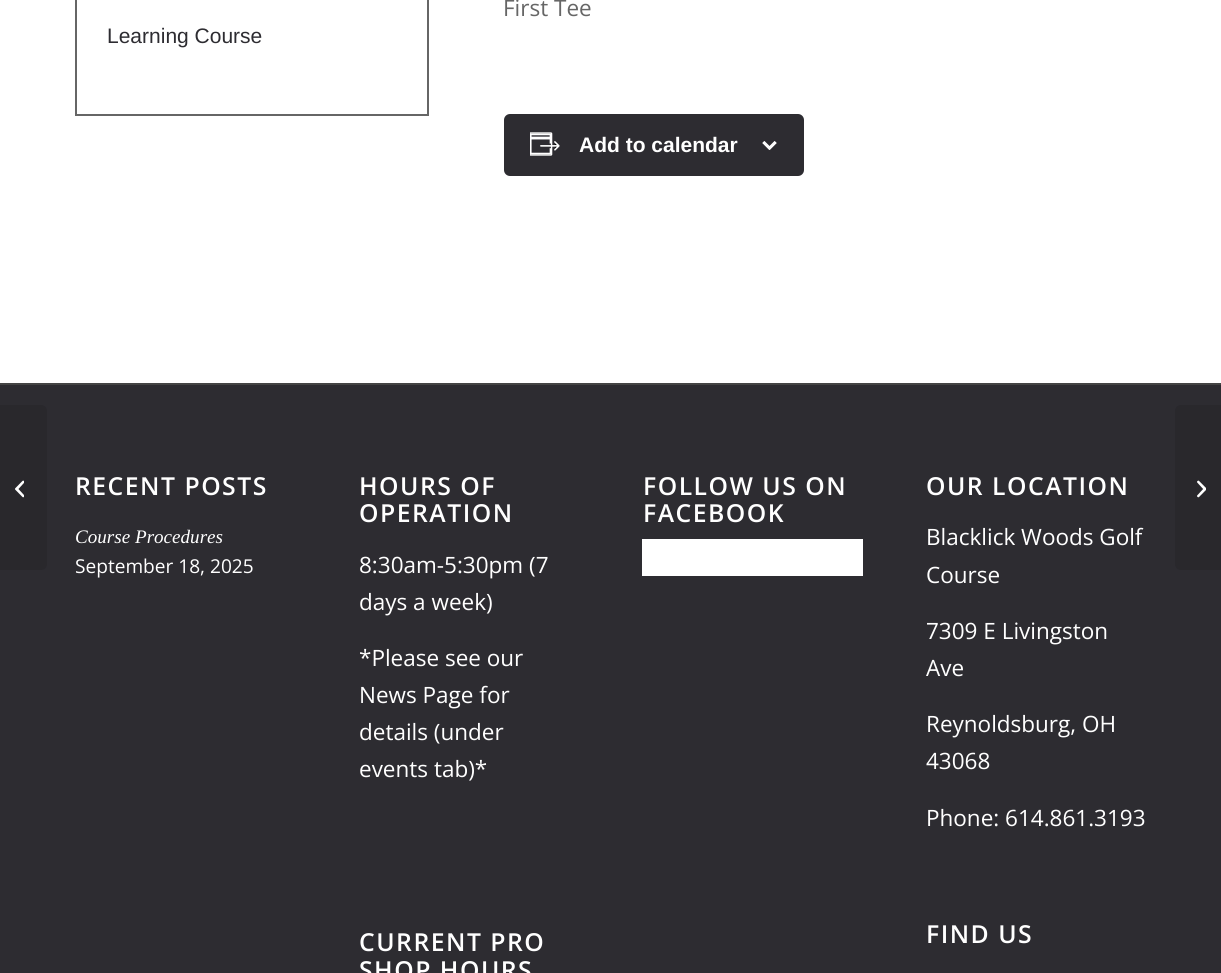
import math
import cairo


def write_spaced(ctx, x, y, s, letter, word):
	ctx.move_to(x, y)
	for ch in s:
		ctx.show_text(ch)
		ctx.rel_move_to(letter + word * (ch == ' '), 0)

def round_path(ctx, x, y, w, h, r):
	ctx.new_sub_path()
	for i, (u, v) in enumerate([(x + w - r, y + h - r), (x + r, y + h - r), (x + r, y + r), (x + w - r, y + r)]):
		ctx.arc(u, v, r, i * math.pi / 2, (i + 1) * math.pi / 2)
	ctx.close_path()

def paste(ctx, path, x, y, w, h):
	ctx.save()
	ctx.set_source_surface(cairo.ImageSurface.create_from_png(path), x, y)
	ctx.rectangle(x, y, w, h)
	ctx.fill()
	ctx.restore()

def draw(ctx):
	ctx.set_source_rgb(1, 1, 1)
	ctx.paint()
	ctx.set_source_rgb(0.176, 0.173, 0.192)
	ctx.rectangle(0, 385, 1221, 588)
	ctx.fill()
	ctx.set_source_rgb(0.161, 0.157, 0.173)
	ctx.new_path()
	ctx.move_to(0, 405)
	ctx.line_to(41, 405)
	ctx.curve_to(44.5, 405, 47, 407.5, 47, 411)
	ctx.line_to(47, 564)
	ctx.curve_to(47, 567.5, 44.5, 570, 41, 570)
	ctx.line_to(0, 570)
	ctx.close_path()
	ctx.fill()
	paste(ctx, 'media/1.png', 15, 480, 9, 18)
	ctx.rectangle(76, -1, 352, 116)
	ctx.set_source_rgb(0.4, 0.4, 0.4)
	ctx.stroke()
	ctx.select_font_face('Liberation Sans')
	ctx.set_font_size(21)
	ctx.set_source_rgb(0.176, 0.173, 0.192)
	ctx.move_to(107, 43)
	ctx.show_text('Learning Course')
	ctx.select_font_face('Open Sans')
	ctx.set_font_size(22.5)
	ctx.set_source_rgb(0.4, 0.4, 0.4)
	ctx.move_to(503, 16)
	ctx.show_text('First Tee')
	ctx.set_source_rgb(0.176, 0.173, 0.192)
	round_path(ctx, 505, 115, 298, 60, 5)
	ctx.fill_preserve()
	ctx.stroke()
	paste(ctx, 'media/2.png', 530, 132, 30, 24)
	ctx.select_font_face('Liberation Sans', cairo.FONT_SLANT_NORMAL, cairo.FONT_WEIGHT_BOLD)
	ctx.set_font_size(21)
	ctx.set_source_rgb(1, 1, 1)
	ctx.move_to(579, 152)
	ctx.show_text('Add to calendar')
	paste(ctx, 'media/3.png', 762, 141, 15, 9)
	ctx.set_source_rgb(0.267, 0.267, 0.267)
	ctx.rectangle(0, 383, 1221, 2)
	ctx.fill()
	ctx.select_font_face('Open Sans SemiBold')
	ctx.set_font_size(24.75)
	ctx.set_source_rgb(1, 1, 1)
	write_spaced(ctx, 75, 495, 'RECENT POSTS', 1.5, 0)
	ctx.select_font_face('Liberation Serif', cairo.FONT_SLANT_ITALIC)
	ctx.set_font_size(19.1)
	ctx.move_to(75, 543)
	ctx.show_text('Course Procedures')
	ctx.select_font_face('Open Sans')
	ctx.move_to(75, 573)
	ctx.show_text('September 18, 2025')
	ctx.select_font_face('Open Sans SemiBold')
	ctx.set_font_size(24.75)
	write_spaced(ctx, 359, 495, 'HOURS OF', 1.5, 0)
	write_spaced(ctx, 359, 522, 'OPERATION', 1.5, 0)
	ctx.select_font_face('Open Sans')
	ctx.set_font_size(22.5)
	for x, y, s in [
		(359, 573, '8:30am-5:30pm (7'),
		(359, 610, 'days a week)'),
		(359, 666, '*Please see our'),
		(359, 703, 'News Page for'),
		(359, 740, 'details (under'),
		(359, 777, 'events tab)*'),
	]:
		ctx.move_to(x, y)
		ctx.show_text(s)
	ctx.select_font_face('Open Sans SemiBold')
	ctx.set_font_size(24.75)
	for x, y, s in [
		(359, 951, 'CURRENT PRO'),
		(359, 979, 'SHOP HOURS'),
		(643, 495, 'FOLLOW US ON'),
		(643, 522, 'FACEBOOK'),
	]:
		write_spaced(ctx, x, y, s, 1.5, 0)
	ctx.rectangle(642, 539, 221, 37)
	ctx.fill()
	write_spaced(ctx, 926, 495, 'OUR LOCATION', 1.5, 0)
	ctx.select_font_face('Open Sans')
	ctx.set_font_size(22.5)
	for x, y, s in [
		(926, 545, 'Blacklick Woods Golf'),
		(926, 583, 'Course'),
		(926, 639, '7309 E Livingston'),
		(926, 676, 'Ave'),
		(926, 732, 'Reynoldsburg, OH'),
		(926, 769, '43068'),
		(926, 826, 'Phone: 614.861.3193'),
	]:
		ctx.move_to(x, y)
		ctx.show_text(s)
	ctx.select_font_face('Open Sans SemiBold')
	ctx.set_font_size(24.75)
	write_spaced(ctx, 926, 943, 'FIND US', 1.5, 0)
	ctx.set_source_rgb(0.161, 0.157, 0.173)
	ctx.new_path()
	ctx.move_to(1181, 405)
	ctx.line_to(1221, 405)
	ctx.line_to(1221, 570)
	ctx.line_to(1181, 570)
	ctx.curve_to(1177.5, 570, 1175, 567.5, 1175, 564)
	ctx.line_to(1175, 411)
	ctx.curve_to(1175, 407.5, 1177.5, 405, 1181, 405)
	ctx.close_path()
	ctx.fill()
	paste(ctx, 'media/4.png', 1197, 480, 9, 18)


surface = cairo.ImageSurface(cairo.FORMAT_RGB24, 1221, 973)
ctx = cairo.Context(surface)
options = cairo.FontOptions()
options.set_hint_metrics(cairo.HINT_METRICS_OFF)
options.set_hint_style(cairo.HINT_STYLE_NONE)
ctx.set_font_options(options)
ctx.set_miter_limit(4)
draw(ctx)
surface.write_to_png('image.png')
